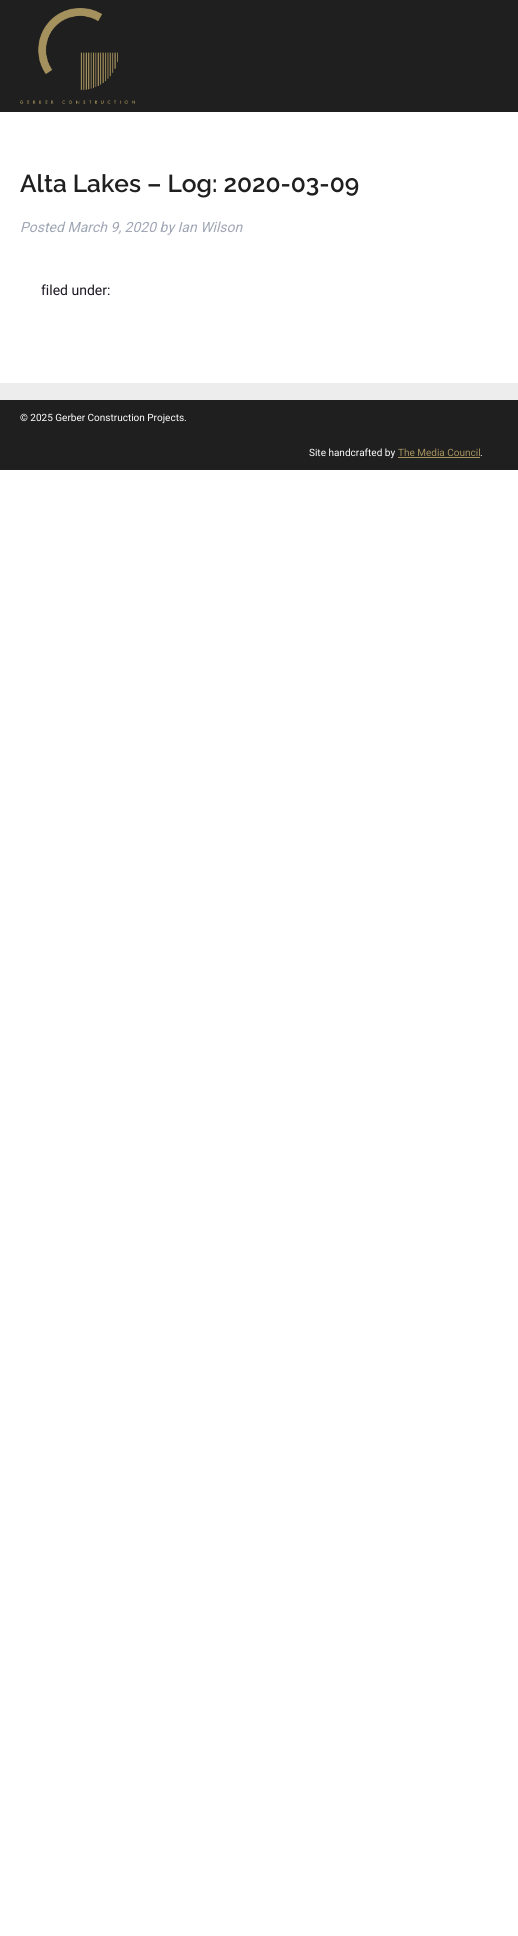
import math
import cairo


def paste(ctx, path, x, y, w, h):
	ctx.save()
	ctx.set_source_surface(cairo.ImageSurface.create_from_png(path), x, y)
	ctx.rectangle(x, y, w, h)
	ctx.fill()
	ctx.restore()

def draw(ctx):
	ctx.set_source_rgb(1, 1, 1)
	ctx.paint()
	ctx.set_source_rgb(0.122, 0.122, 0.122)
	ctx.rectangle(0, 0, 518, 112)
	ctx.fill()
	paste(ctx, 'media/1.png', 20, 8, 115, 96)
	ctx.select_font_face('Raleway SemiBold')
	ctx.set_font_size(24.5)
	ctx.move_to(20, 192)
	ctx.show_text('Alta Lakes – Log: 2020-03-09')
	ctx.select_font_face('Roboto', cairo.FONT_SLANT_ITALIC)
	ctx.set_font_size(14)
	ctx.set_source_rgb(0.624, 0.651, 0.706)
	ctx.move_to(20, 232)
	ctx.show_text('Posted March 9, 2020 by Ian Wilson')
	ctx.select_font_face('Roboto')
	ctx.set_source_rgb(0.11, 0.09, 0.125)
	ctx.move_to(41, 295)
	ctx.show_text('filed under:')
	ctx.set_source_rgb(0.122, 0.122, 0.122)
	ctx.rectangle(0, 400, 518, 70)
	ctx.fill()
	ctx.set_source_rgb(0.929, 0.929, 0.929)
	ctx.rectangle(0, 383, 518, 17)
	ctx.fill()
	ctx.set_font_size(10)
	ctx.set_source_rgb(1, 1, 1)
	ctx.move_to(20, 421)
	ctx.show_text('© 2025 Gerber Construction Projects.')
	ctx.move_to(309, 456)
	ctx.show_text('Site handcrafted by')
	ctx.set_source_rgb(0.643, 0.569, 0.365)
	ctx.move_to(398, 456)
	ctx.show_text('The Media Council')
	ctx.rectangle(398, 457, 82, 1)
	ctx.fill()
	ctx.set_source_rgb(1, 1, 1)
	ctx.move_to(480, 456)
	ctx.show_text('.')


surface = cairo.ImageSurface(cairo.FORMAT_RGB24, 518, 1936)
ctx = cairo.Context(surface)
options = cairo.FontOptions()
options.set_hint_metrics(cairo.HINT_METRICS_OFF)
options.set_hint_style(cairo.HINT_STYLE_NONE)
ctx.set_font_options(options)
ctx.set_miter_limit(4)
draw(ctx)
surface.write_to_png('image.png')
